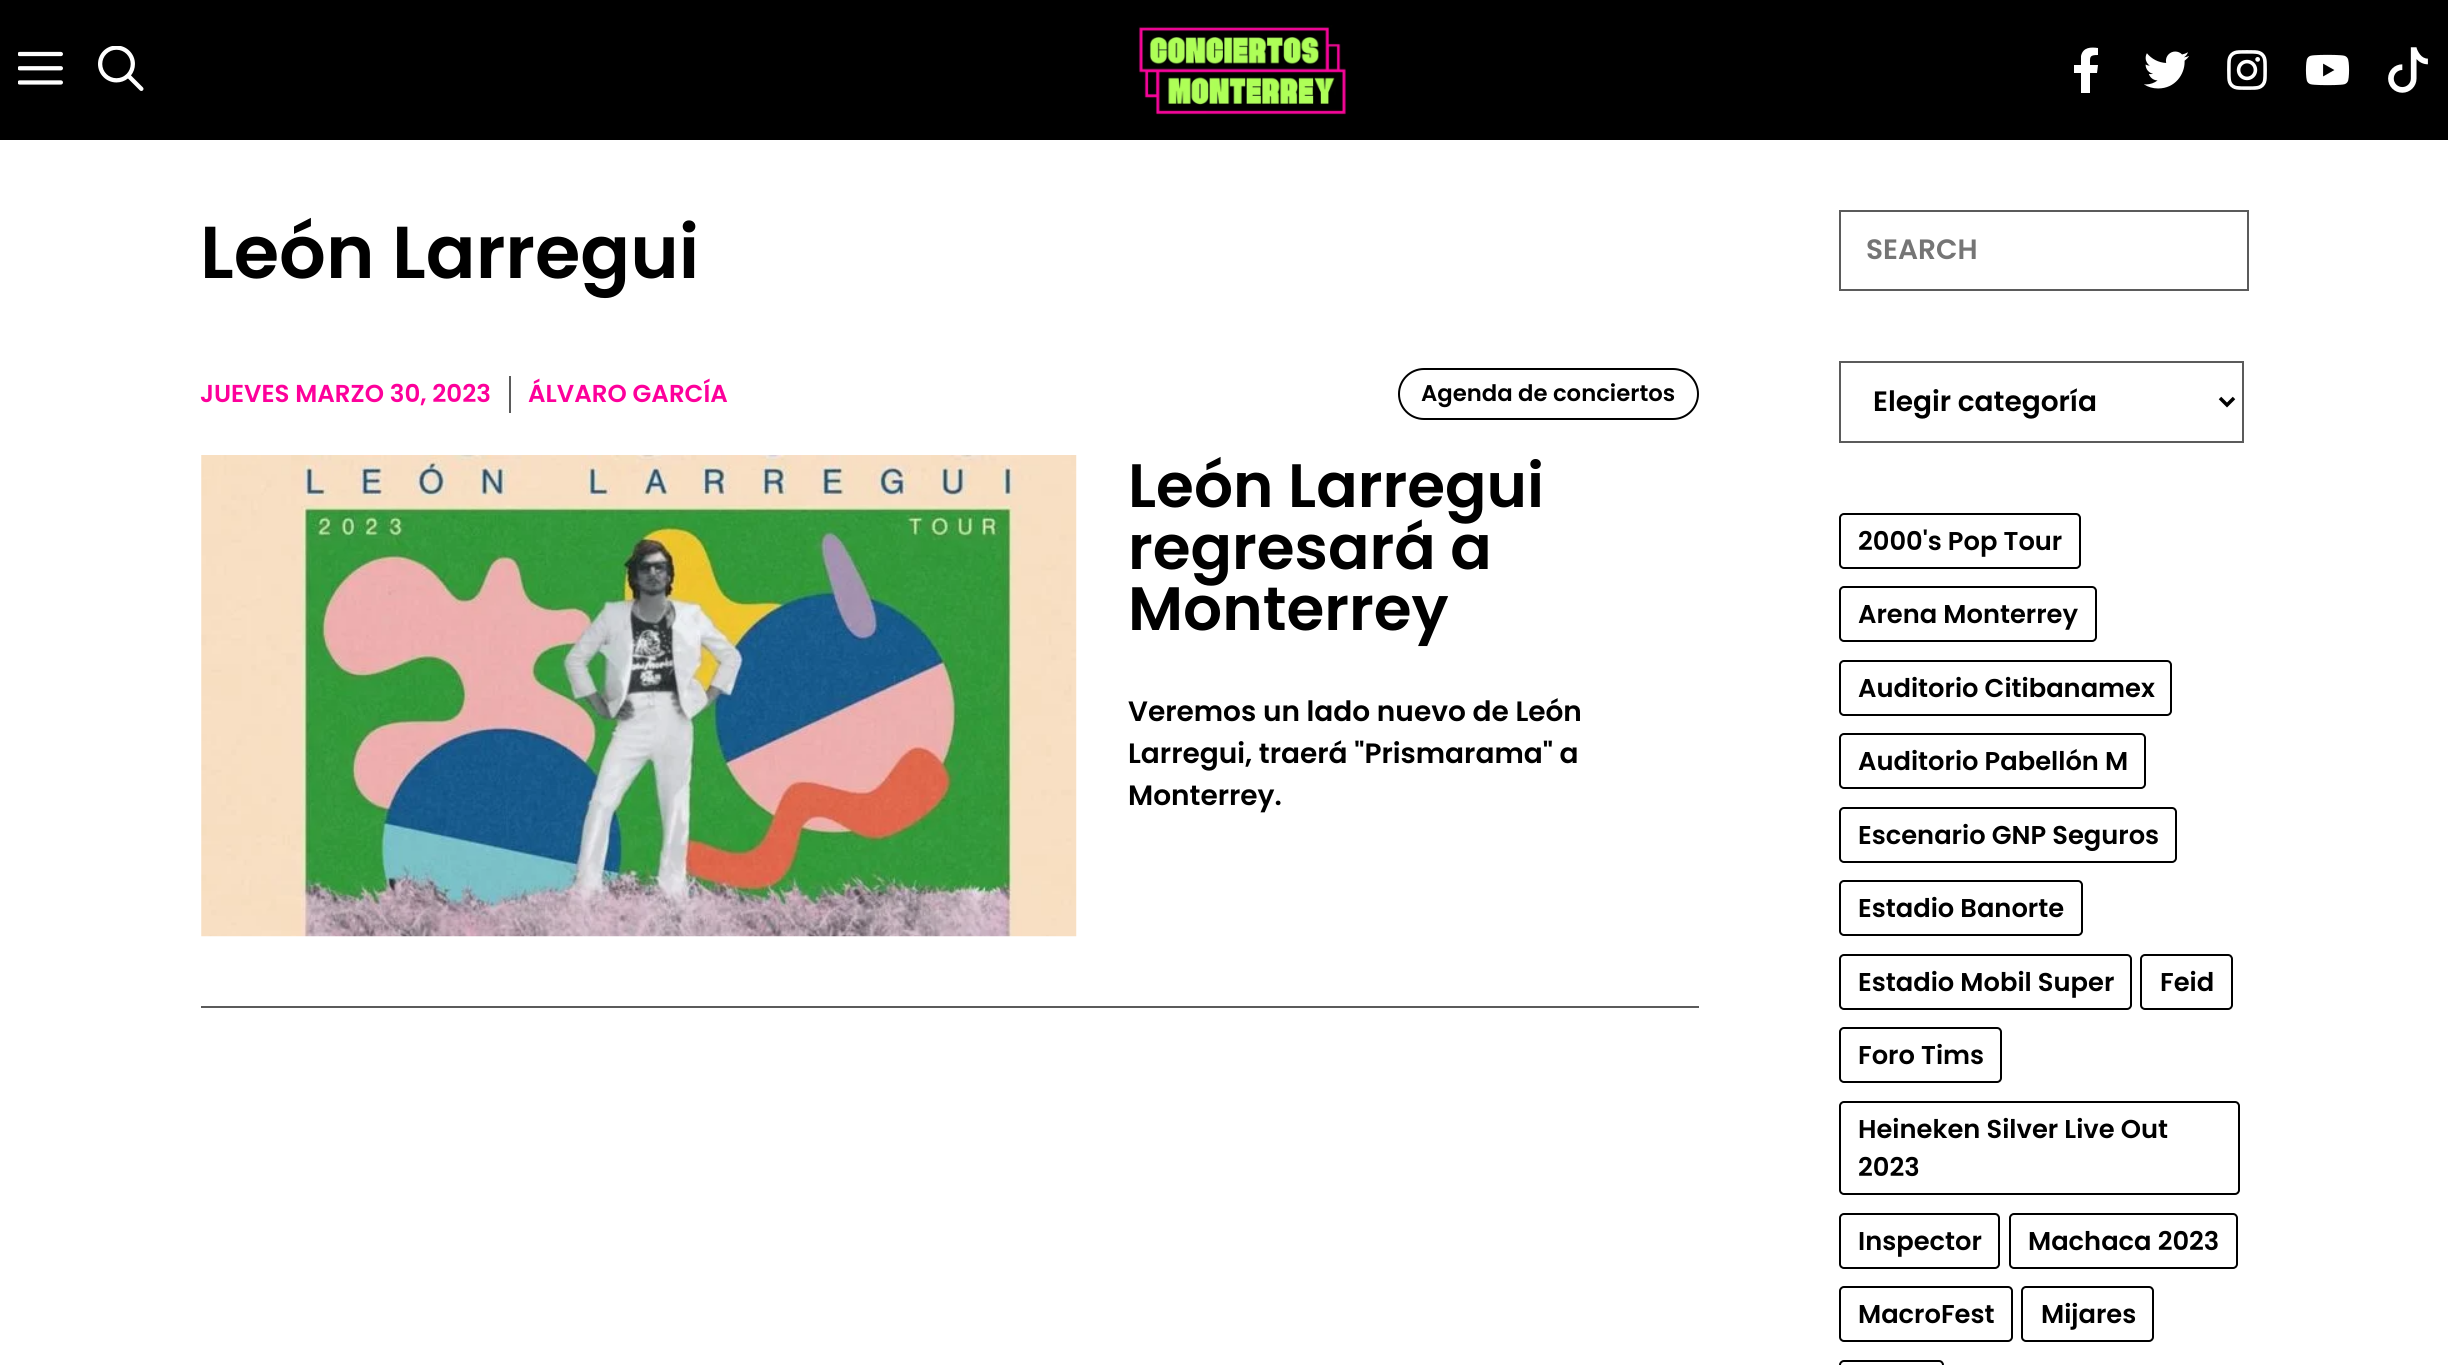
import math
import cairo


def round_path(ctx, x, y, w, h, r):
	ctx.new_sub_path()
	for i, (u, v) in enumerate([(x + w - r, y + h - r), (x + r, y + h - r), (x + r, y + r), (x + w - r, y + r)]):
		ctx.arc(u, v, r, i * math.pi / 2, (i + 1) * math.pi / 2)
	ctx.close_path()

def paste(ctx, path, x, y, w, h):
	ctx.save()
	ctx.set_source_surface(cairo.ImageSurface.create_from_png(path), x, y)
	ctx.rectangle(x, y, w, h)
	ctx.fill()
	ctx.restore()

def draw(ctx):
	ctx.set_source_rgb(1, 1, 1)
	ctx.paint()
	ctx.set_source_rgb(0, 0, 0)
	ctx.rectangle(0, 0, 2448, 140)
	ctx.fill()
	paste(ctx, 'media/1.png', 18, 51, 45, 34)
	paste(ctx, 'media/2.png', 98, 46, 46, 45)
	paste(ctx, 'media/3.png', 1138, 25, 209, 90)
	ctx.set_source_rgb(1, 1, 1)
	ctx.new_path()
	ctx.move_to(2097, 73)
	ctx.line_to(2098, 65)
	ctx.line_to(2090, 65)
	ctx.curve_to(2090, 57, 2089, 55, 2098, 55)
	ctx.line_to(2098, 48)
	ctx.curve_to(2091, 47, 2083, 47, 2081, 56)
	ctx.line_to(2081, 65)
	ctx.line_to(2074, 65)
	ctx.line_to(2074, 73)
	ctx.line_to(2081, 73)
	ctx.line_to(2081, 93)
	ctx.line_to(2090, 93)
	ctx.line_to(2090, 73)
	ctx.close_path()
	ctx.fill()
	paste(ctx, 'media/4.png', 2144, 51, 45, 38)
	paste(ctx, 'media/5.png', 2227, 50, 40, 40)
	paste(ctx, 'media/6.png', 2305, 54, 45, 32)
	paste(ctx, 'media/7.png', 2388, 47, 40, 46)
	ctx.select_font_face('Poppins SemiBold')
	ctx.set_font_size(73.5)
	ctx.set_source_rgb(0, 0, 0)
	ctx.move_to(200, 278)
	ctx.show_text('León Larregui')
	ctx.set_source_rgb(0.357, 0.357, 0.357)
	ctx.rectangle(201, 1006, 1498, 2)
	ctx.fill()
	ctx.set_font_size(24.5)
	ctx.set_source_rgb(0.992, 0, 0.608)
	ctx.move_to(200, 402)
	ctx.show_text('JUEVES MARZO 30, 2023')
	ctx.set_source_rgb(0.357, 0.357, 0.357)
	ctx.rectangle(509, 376, 2, 37)
	ctx.fill()
	ctx.set_source_rgb(0.992, 0, 0.608)
	ctx.move_to(528, 402)
	ctx.show_text('ÁLVARO GARCÍA')
	round_path(ctx, 1399, 369, 299, 50, 25)
	ctx.set_source_rgb(0, 0, 0)
	ctx.stroke()
	ctx.set_font_size(22.75)
	ctx.move_to(1421, 401)
	ctx.show_text('Agenda de conciertos')
	paste(ctx, 'media/8.png', 201, 455, 876, 482)
	ctx.set_font_size(61.25)
	for x, y, s in [
		(1128, 507, 'León Larregui'),
		(1128, 569, 'regresará a'),
		(1128, 630, 'Monterrey'),
	]:
		ctx.move_to(x, y)
		ctx.show_text(s)
	ctx.set_font_size(28)
	for x, y, s in [
		(1128, 721, 'Veremos un lado nuevo de León'),
		(1128, 763, 'Larregui, traerá "Prismarama" a'),
		(1128, 805, 'Monterrey.'),
	]:
		ctx.move_to(x, y)
		ctx.show_text(s)
	ctx.rectangle(1840, 211, 408, 79)
	ctx.set_source_rgb(0.357, 0.357, 0.357)
	ctx.stroke()
	ctx.set_source_rgb(0.459, 0.459, 0.459)
	ctx.move_to(1866, 259)
	ctx.show_text('SEARCH')
	ctx.rectangle(1840, 362, 403, 80)
	ctx.set_source_rgb(0.357, 0.357, 0.357)
	ctx.stroke()
	ctx.new_path()
	ctx.move_to(2220, 398)
	ctx.line_to(2227, 405)
	ctx.line_to(2234, 398)
	ctx.set_source_rgb(0, 0, 0)
	ctx.set_line_width(3.5)
	ctx.stroke()
	ctx.move_to(1873, 411)
	ctx.show_text('Elegir categoría')
	round_path(ctx, 1840, 514, 240, 54, 4)
	ctx.set_line_width(2)
	ctx.stroke()
	ctx.set_font_size(25.75)
	ctx.move_to(1858, 550)
	ctx.show_text('2000\'s Pop Tour')
	round_path(ctx, 1840, 587, 256, 54, 4)
	ctx.stroke()
	ctx.move_to(1858, 623)
	ctx.show_text('Arena Monterrey')
	round_path(ctx, 1840, 661, 331, 54, 4)
	ctx.stroke()
	ctx.move_to(1858, 697)
	ctx.show_text('Auditorio Citibanamex')
	round_path(ctx, 1840, 734, 305, 54, 4)
	ctx.stroke()
	ctx.move_to(1858, 770)
	ctx.show_text('Auditorio Pabellón M')
	round_path(ctx, 1840, 808, 336, 54, 4)
	ctx.stroke()
	ctx.move_to(1858, 844)
	ctx.show_text('Escenario GNP Seguros')
	round_path(ctx, 1840, 881, 242, 54, 4)
	ctx.stroke()
	ctx.move_to(1858, 917)
	ctx.show_text('Estadio Banorte')
	round_path(ctx, 1840, 955, 291, 54, 4)
	ctx.stroke()
	ctx.move_to(1858, 991)
	ctx.show_text('Estadio Mobil Super')
	round_path(ctx, 2141, 955, 91, 54, 4)
	ctx.stroke()
	ctx.move_to(2160, 991)
	ctx.show_text('Feid')
	round_path(ctx, 1840, 1028, 161, 54, 4)
	ctx.stroke()
	ctx.move_to(1858, 1064)
	ctx.show_text('Foro Tims')
	round_path(ctx, 1840, 1102, 399, 92, 4)
	ctx.stroke()
	ctx.move_to(1858, 1138)
	ctx.show_text('Heineken Silver Live Out')
	ctx.move_to(1858, 1176)
	ctx.show_text('2023')
	round_path(ctx, 1840, 1214, 159, 54, 4)
	ctx.stroke()
	ctx.move_to(1858, 1250)
	ctx.show_text('Inspector')
	round_path(ctx, 2010, 1214, 227, 54, 4)
	ctx.stroke()
	ctx.move_to(2028, 1250)
	ctx.show_text('Machaca 2023')
	round_path(ctx, 1840, 1287, 172, 54, 4)
	ctx.stroke()
	ctx.move_to(1858, 1323)
	ctx.show_text('MacroFest')
	round_path(ctx, 2022, 1287, 131, 54, 4)
	ctx.stroke()
	ctx.move_to(2041, 1323)
	ctx.show_text('Mijares')
	round_path(ctx, 1840, 1361, 103, 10, 4)
	ctx.stroke()


surface = cairo.ImageSurface(cairo.FORMAT_RGB24, 2448, 1365)
ctx = cairo.Context(surface)
options = cairo.FontOptions()
options.set_hint_metrics(cairo.HINT_METRICS_OFF)
options.set_hint_style(cairo.HINT_STYLE_NONE)
ctx.set_font_options(options)
ctx.set_miter_limit(4)
draw(ctx)
surface.write_to_png('image.png')
